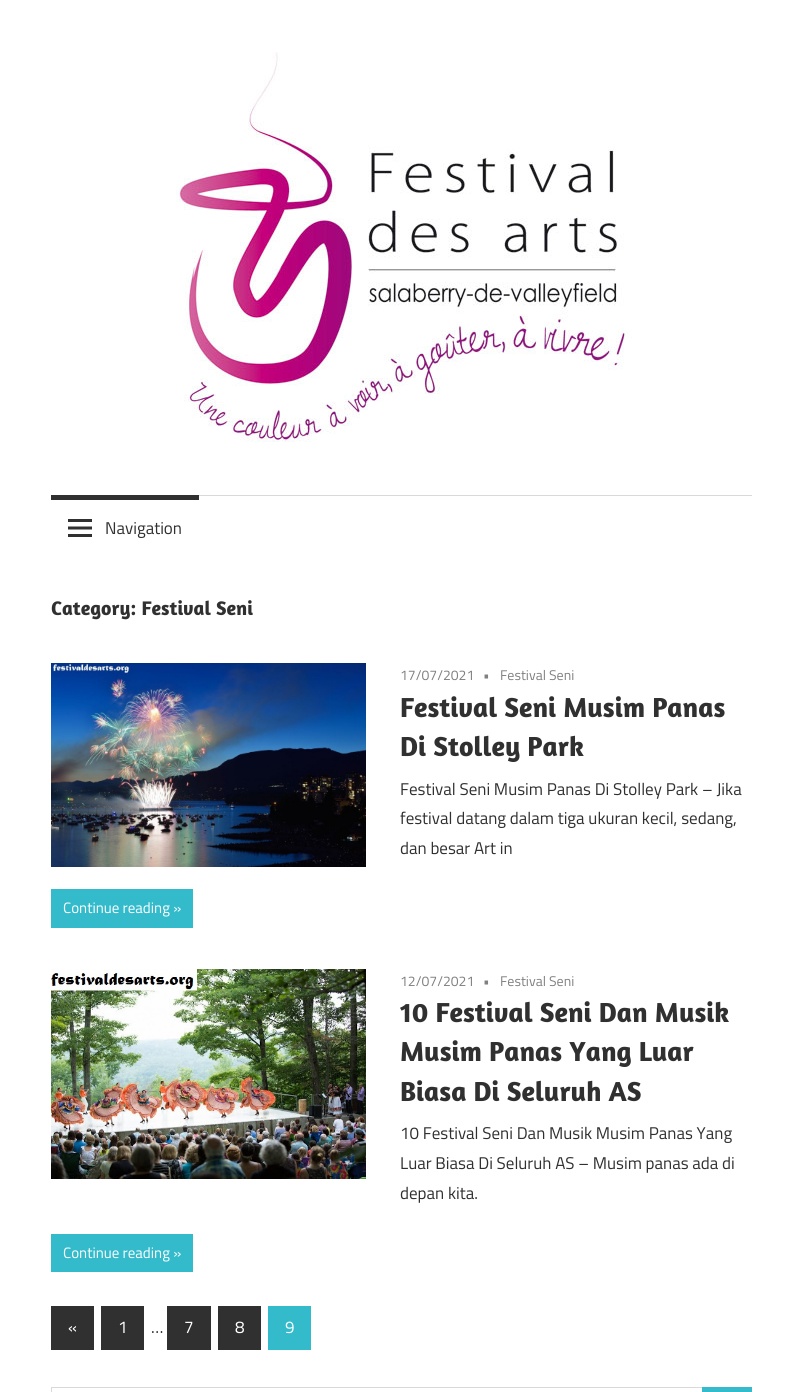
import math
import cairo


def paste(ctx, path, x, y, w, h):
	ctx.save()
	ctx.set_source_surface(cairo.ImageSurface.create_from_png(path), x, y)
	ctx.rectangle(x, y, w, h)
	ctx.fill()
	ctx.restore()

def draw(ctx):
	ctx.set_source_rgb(1, 1, 1)
	ctx.paint()
	paste(ctx, 'media/1.png', 176, 52, 456, 390)
	ctx.set_source_rgb(0.851, 0.851, 0.851)
	ctx.rectangle(199, 495, 553, 1)
	ctx.fill()
	ctx.set_source_rgb(0.188, 0.188, 0.188)
	ctx.rectangle(51, 495, 148, 5)
	ctx.fill()
	paste(ctx, 'media/2.png', 68, 519, 24, 18)
	ctx.select_font_face('Titillium Web')
	ctx.set_font_size(17)
	ctx.move_to(105, 534)
	ctx.show_text('Navigation')
	ctx.select_font_face('Amaranth', cairo.FONT_SLANT_NORMAL, cairo.FONT_WEIGHT_BOLD)
	ctx.set_font_size(20)
	ctx.move_to(51, 615)
	ctx.show_text('Category: Festival Seni')
	paste(ctx, 'media/3.png', 51, 663, 315, 204)
	ctx.select_font_face('Titillium Web')
	ctx.set_font_size(14)
	ctx.set_source_rgb(0.502, 0.502, 0.502)
	for x, y, s in [
		(400, 680, '17/07/2021'),
		(483, 680, '•'),
		(500, 680, 'Festival Seni'),
	]:
		ctx.move_to(x, y)
		ctx.show_text(s)
	ctx.select_font_face('Amaranth', cairo.FONT_SLANT_NORMAL, cairo.FONT_WEIGHT_BOLD)
	ctx.set_font_size(28)
	ctx.set_source_rgb(0.188, 0.188, 0.188)
	ctx.move_to(400, 717)
	ctx.show_text('Festival Seni Musim Panas')
	ctx.move_to(400, 756)
	ctx.show_text('Di Stolley Park')
	ctx.select_font_face('Titillium Web')
	ctx.set_font_size(17)
	for x, y, s in [
		(400, 795, 'Festival Seni Musim Panas Di Stolley Park – Jika'),
		(400, 824, 'festival datang dalam tiga ukuran kecil, sedang,'),
		(400, 854, 'dan besar Art in'),
	]:
		ctx.move_to(x, y)
		ctx.show_text(s)
	ctx.set_source_rgb(0.2, 0.733, 0.8)
	ctx.rectangle(51, 889, 142, 39)
	ctx.fill()
	ctx.set_font_size(15)
	ctx.set_source_rgb(1, 1, 1)
	ctx.move_to(63, 913)
	ctx.show_text('Continue reading »')
	paste(ctx, 'media/4.png', 51, 969, 315, 210)
	ctx.set_font_size(14)
	ctx.set_source_rgb(0.502, 0.502, 0.502)
	for x, y, s in [
		(400, 986, '12/07/2021'),
		(483, 986, '•'),
		(500, 986, 'Festival Seni'),
	]:
		ctx.move_to(x, y)
		ctx.show_text(s)
	ctx.select_font_face('Amaranth', cairo.FONT_SLANT_NORMAL, cairo.FONT_WEIGHT_BOLD)
	ctx.set_font_size(28)
	ctx.set_source_rgb(0.188, 0.188, 0.188)
	for x, y, s in [
		(400, 1022, '10 Festival Seni Dan Musik'),
		(400, 1061, 'Musim Panas Yang Luar'),
		(400, 1101, 'Biasa Di Seluruh AS'),
	]:
		ctx.move_to(x, y)
		ctx.show_text(s)
	ctx.select_font_face('Titillium Web')
	ctx.set_font_size(17)
	for x, y, s in [
		(400, 1139, '10 Festival Seni Dan Musik Musim Panas Yang'),
		(400, 1169, 'Luar Biasa Di Seluruh AS – Musim panas ada di'),
		(400, 1199, 'depan kita.'),
	]:
		ctx.move_to(x, y)
		ctx.show_text(s)
	ctx.set_source_rgb(0.2, 0.733, 0.8)
	ctx.rectangle(51, 1234, 142, 38)
	ctx.fill()
	ctx.set_font_size(15)
	ctx.set_source_rgb(1, 1, 1)
	ctx.move_to(63, 1258)
	ctx.show_text('Continue reading »')
	ctx.set_source_rgb(0.188, 0.188, 0.188)
	ctx.rectangle(51, 1306, 43, 44)
	ctx.fill()
	ctx.set_font_size(17)
	ctx.set_source_rgb(1, 1, 1)
	ctx.move_to(68, 1333)
	ctx.show_text('«')
	ctx.set_source_rgb(0.188, 0.188, 0.188)
	ctx.rectangle(101, 1306, 43, 44)
	ctx.fill()
	ctx.set_source_rgb(1, 1, 1)
	ctx.move_to(118, 1333)
	ctx.show_text('1')
	ctx.set_source_rgb(0.188, 0.188, 0.188)
	ctx.move_to(151, 1333)
	ctx.show_text('…')
	ctx.rectangle(167, 1306, 44, 44)
	ctx.fill()
	ctx.set_source_rgb(1, 1, 1)
	ctx.move_to(184, 1333)
	ctx.show_text('7')
	ctx.set_source_rgb(0.188, 0.188, 0.188)
	ctx.rectangle(218, 1306, 43, 44)
	ctx.fill()
	ctx.set_source_rgb(1, 1, 1)
	ctx.move_to(235, 1333)
	ctx.show_text('8')
	ctx.set_source_rgb(0.2, 0.733, 0.8)
	ctx.rectangle(268, 1306, 43, 44)
	ctx.fill()
	ctx.set_source_rgb(1, 1, 1)
	ctx.move_to(285, 1333)
	ctx.show_text('9')
	ctx.rectangle(51.5, 1387.5, 651, 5)
	ctx.set_source_rgb(0.851, 0.851, 0.851)
	ctx.set_line_width(1)
	ctx.stroke()
	ctx.set_source_rgb(0.2, 0.733, 0.8)
	ctx.rectangle(702, 1387, 50, 5)
	ctx.fill()


surface = cairo.ImageSurface(cairo.FORMAT_RGB24, 803, 1392)
ctx = cairo.Context(surface)
options = cairo.FontOptions()
options.set_hint_metrics(cairo.HINT_METRICS_OFF)
options.set_hint_style(cairo.HINT_STYLE_NONE)
ctx.set_font_options(options)
ctx.set_miter_limit(4)
draw(ctx)
surface.write_to_png('image.png')
